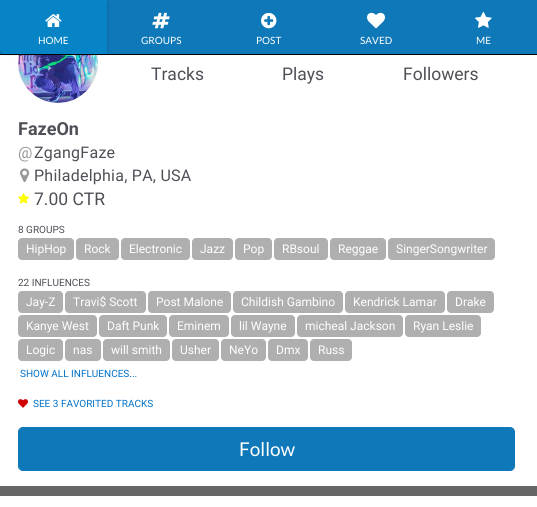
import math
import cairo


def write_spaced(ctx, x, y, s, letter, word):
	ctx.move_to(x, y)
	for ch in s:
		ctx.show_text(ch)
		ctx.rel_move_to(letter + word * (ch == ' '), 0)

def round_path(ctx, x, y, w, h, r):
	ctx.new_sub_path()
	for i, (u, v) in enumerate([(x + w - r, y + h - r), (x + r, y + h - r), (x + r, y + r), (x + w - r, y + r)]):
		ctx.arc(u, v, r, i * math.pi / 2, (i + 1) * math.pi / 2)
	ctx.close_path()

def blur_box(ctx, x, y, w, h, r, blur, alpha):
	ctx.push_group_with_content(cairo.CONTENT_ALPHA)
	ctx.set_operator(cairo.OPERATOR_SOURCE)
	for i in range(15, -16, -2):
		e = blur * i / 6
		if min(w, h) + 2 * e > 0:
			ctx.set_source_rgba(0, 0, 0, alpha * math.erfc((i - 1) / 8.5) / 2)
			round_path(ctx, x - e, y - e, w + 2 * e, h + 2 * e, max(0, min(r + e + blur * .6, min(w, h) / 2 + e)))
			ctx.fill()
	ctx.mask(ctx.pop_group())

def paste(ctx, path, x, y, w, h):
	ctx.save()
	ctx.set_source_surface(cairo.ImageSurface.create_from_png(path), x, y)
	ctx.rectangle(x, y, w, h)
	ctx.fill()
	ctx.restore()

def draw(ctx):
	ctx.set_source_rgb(0.4, 0.4, 0.4)
	ctx.paint()
	ctx.set_source_rgb(0, 0, 0)
	ctx.rectangle(0, 54, 537, 1)
	ctx.fill()
	ctx.set_source_rgb(0.059, 0.471, 0.722)
	ctx.rectangle(0, 0, 537, 54)
	ctx.fill()
	ctx.set_source_rgb(1, 1, 1)
	ctx.rectangle(0, 55, 537, 431)
	ctx.fill()
	paste(ctx, 'media/6.png', 18, 55, 80, 48)
	ctx.set_source_rgb(0, 0, 0)
	blur_box(ctx, 0, -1, 107, 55, 5, 1.5, 0.25)
	ctx.set_source_rgb(0.031, 0.518, 0.773)
	ctx.new_path()
	ctx.move_to(0, -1)
	ctx.line_to(107, -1)
	ctx.line_to(107, 54)
	ctx.line_to(5, 54)
	ctx.curve_to(2, 54, 0, 52, 0, 49)
	ctx.close_path()
	ctx.fill()
	paste(ctx, 'media/1.png', 45, 14, 17, 13)
	ctx.select_font_face('Lato')
	ctx.set_font_size(10)
	ctx.set_source_rgb(1, 1, 1)
	ctx.move_to(38, 44)
	ctx.show_text('HOME')
	paste(ctx, 'media/2.png', 152, 12, 18, 17)
	ctx.move_to(141, 44)
	ctx.show_text('GROUPS')
	paste(ctx, 'media/3.png', 261, 12, 16, 17)
	ctx.move_to(256, 44)
	ctx.show_text('POST')
	paste(ctx, 'media/4.png', 367, 12, 18, 17)
	ctx.move_to(360, 44)
	ctx.show_text('SAVED')
	paste(ctx, 'media/5.png', 475, 11, 17, 17)
	ctx.move_to(476, 44)
	ctx.show_text('ME')
	ctx.select_font_face('Roboto')
	ctx.set_font_size(17.5)
	ctx.set_source_rgb(0.31, 0.314, 0.341)
	for x, y, s in [
		(151, 80, 'Tracks'),
		(282, 80, 'Plays'),
		(403, 80, 'Followers'),
	]:
		ctx.move_to(x, y)
		ctx.show_text(s)
	ctx.select_font_face('Roboto', cairo.FONT_SLANT_NORMAL, cairo.FONT_WEIGHT_BOLD)
	ctx.set_font_size(18)
	ctx.move_to(18, 135)
	ctx.show_text('FazeOn')
	ctx.select_font_face('Roboto')
	ctx.set_font_size(16)
	ctx.set_source_rgb(0.6, 0.6, 0.6)
	write_spaced(ctx, 18, 158, '@', 0.25, 0)
	ctx.set_source_rgb(0.31, 0.314, 0.341)
	write_spaced(ctx, 34, 158, 'ZgangFaze', 0.25, 0)
	paste(ctx, 'media/7.png', 20, 168, 10, 15)
	write_spaced(ctx, 34, 181, 'Philadelphia, PA, USA', 0.25, 0)
	paste(ctx, 'media/8.png', 18, 193, 12, 11)
	ctx.set_font_size(17.5)
	ctx.move_to(34, 205)
	ctx.show_text('7.00 CTR')
	ctx.set_font_size(10)
	ctx.move_to(18, 233)
	ctx.show_text('8 GROUPS')
	ctx.set_source_rgb(0.686, 0.686, 0.686)
	round_path(ctx, 18.5, 238.5, 55, 21, 3.5)
	ctx.fill_preserve()
	ctx.set_line_width(1)
	ctx.stroke()
	ctx.set_font_size(12)
	ctx.set_source_rgb(1, 1, 1)
	ctx.move_to(26, 253)
	ctx.show_text('HipHop')
	ctx.set_source_rgb(0.686, 0.686, 0.686)
	round_path(ctx, 76.5, 238.5, 42, 21, 3.5)
	ctx.fill_preserve()
	ctx.stroke()
	ctx.set_source_rgb(1, 1, 1)
	ctx.move_to(84, 253)
	ctx.show_text('Rock')
	ctx.set_source_rgb(0.686, 0.686, 0.686)
	round_path(ctx, 121.5, 238.5, 68, 21, 3.5)
	ctx.fill_preserve()
	ctx.stroke()
	ctx.set_source_rgb(1, 1, 1)
	ctx.move_to(129, 253)
	ctx.show_text('Electronic')
	ctx.set_source_rgb(0.686, 0.686, 0.686)
	round_path(ctx, 192.5, 238.5, 40, 21, 3.5)
	ctx.fill_preserve()
	ctx.stroke()
	ctx.set_source_rgb(1, 1, 1)
	ctx.move_to(200, 253)
	ctx.show_text('Jazz')
	ctx.set_source_rgb(0.686, 0.686, 0.686)
	round_path(ctx, 235.5, 238.5, 36, 21, 3.5)
	ctx.fill_preserve()
	ctx.stroke()
	ctx.set_source_rgb(1, 1, 1)
	ctx.move_to(243, 253)
	ctx.show_text('Pop')
	ctx.set_source_rgb(0.686, 0.686, 0.686)
	round_path(ctx, 274.5, 238.5, 53, 21, 3.5)
	ctx.fill_preserve()
	ctx.stroke()
	ctx.set_source_rgb(1, 1, 1)
	ctx.move_to(282, 253)
	ctx.show_text('RBsoul')
	ctx.set_source_rgb(0.686, 0.686, 0.686)
	round_path(ctx, 330.5, 238.5, 55, 21, 3.5)
	ctx.fill_preserve()
	ctx.stroke()
	ctx.set_source_rgb(1, 1, 1)
	ctx.move_to(338, 253)
	ctx.show_text('Reggae')
	ctx.set_source_rgb(0.686, 0.686, 0.686)
	round_path(ctx, 388.5, 238.5, 106, 21, 3.5)
	ctx.fill_preserve()
	ctx.stroke()
	ctx.set_source_rgb(1, 1, 1)
	ctx.move_to(396, 253)
	ctx.show_text('SingerSongwriter')
	ctx.set_font_size(10)
	ctx.set_source_rgb(0.31, 0.314, 0.341)
	ctx.move_to(18, 286)
	ctx.show_text('22 INFLUENCES')
	ctx.set_source_rgb(0.686, 0.686, 0.686)
	round_path(ctx, 18.5, 291.5, 44, 21, 3.5)
	ctx.fill_preserve()
	ctx.stroke()
	ctx.set_font_size(12)
	ctx.set_source_rgb(1, 1, 1)
	ctx.move_to(26, 306)
	ctx.show_text('Jay-Z')
	ctx.set_source_rgb(0.686, 0.686, 0.686)
	round_path(ctx, 65.5, 291.5, 80, 21, 3.5)
	ctx.fill_preserve()
	ctx.stroke()
	ctx.set_source_rgb(1, 1, 1)
	ctx.move_to(73, 306)
	ctx.show_text('Travi$ Scott')
	ctx.set_source_rgb(0.686, 0.686, 0.686)
	round_path(ctx, 148.5, 291.5, 82, 21, 3.5)
	ctx.fill_preserve()
	ctx.stroke()
	ctx.set_source_rgb(1, 1, 1)
	ctx.move_to(156, 306)
	ctx.show_text('Post Malone')
	ctx.set_source_rgb(0.686, 0.686, 0.686)
	round_path(ctx, 233.5, 291.5, 109, 21, 3.5)
	ctx.fill_preserve()
	ctx.stroke()
	ctx.set_source_rgb(1, 1, 1)
	ctx.move_to(241, 306)
	ctx.show_text('Childish Gambino')
	ctx.set_source_rgb(0.686, 0.686, 0.686)
	round_path(ctx, 345.5, 291.5, 99, 21, 3.5)
	ctx.fill_preserve()
	ctx.stroke()
	ctx.set_source_rgb(1, 1, 1)
	ctx.move_to(353, 306)
	ctx.show_text('Kendrick Lamar')
	ctx.set_source_rgb(0.686, 0.686, 0.686)
	round_path(ctx, 447.5, 291.5, 46, 21, 3.5)
	ctx.fill_preserve()
	ctx.stroke()
	ctx.set_source_rgb(1, 1, 1)
	ctx.move_to(455, 306)
	ctx.show_text('Drake')
	ctx.set_source_rgb(0.686, 0.686, 0.686)
	round_path(ctx, 18.5, 315.5, 78, 21, 3.5)
	ctx.fill_preserve()
	ctx.stroke()
	ctx.set_source_rgb(1, 1, 1)
	ctx.move_to(26, 330)
	ctx.show_text('Kanye West')
	ctx.set_source_rgb(0.686, 0.686, 0.686)
	round_path(ctx, 99.5, 315.5, 67, 21, 3.5)
	ctx.fill_preserve()
	ctx.stroke()
	ctx.set_source_rgb(1, 1, 1)
	ctx.move_to(107, 330)
	ctx.show_text('Daft Punk')
	ctx.set_source_rgb(0.686, 0.686, 0.686)
	round_path(ctx, 169.5, 315.5, 59, 21, 3.5)
	ctx.fill_preserve()
	ctx.stroke()
	ctx.set_source_rgb(1, 1, 1)
	ctx.move_to(177, 330)
	ctx.show_text('Eminem')
	ctx.set_source_rgb(0.686, 0.686, 0.686)
	round_path(ctx, 231.5, 315.5, 63, 21, 3.5)
	ctx.fill_preserve()
	ctx.stroke()
	ctx.set_source_rgb(1, 1, 1)
	ctx.move_to(239, 330)
	ctx.show_text('lil Wayne')
	ctx.set_source_rgb(0.686, 0.686, 0.686)
	round_path(ctx, 297.5, 315.5, 105, 21, 3.5)
	ctx.fill_preserve()
	ctx.stroke()
	ctx.set_source_rgb(1, 1, 1)
	ctx.move_to(305, 330)
	ctx.show_text('micheal Jackson')
	ctx.set_source_rgb(0.686, 0.686, 0.686)
	round_path(ctx, 405.5, 315.5, 75, 21, 3.5)
	ctx.fill_preserve()
	ctx.stroke()
	ctx.set_source_rgb(1, 1, 1)
	ctx.move_to(413, 330)
	ctx.show_text('Ryan Leslie')
	ctx.set_source_rgb(0.686, 0.686, 0.686)
	round_path(ctx, 18.5, 339.5, 44, 21, 3.5)
	ctx.fill_preserve()
	ctx.stroke()
	ctx.set_source_rgb(1, 1, 1)
	ctx.move_to(26, 354)
	ctx.show_text('Logic')
	ctx.set_source_rgb(0.686, 0.686, 0.686)
	round_path(ctx, 65.5, 339.5, 35, 21, 3.5)
	ctx.fill_preserve()
	ctx.stroke()
	ctx.set_source_rgb(1, 1, 1)
	ctx.move_to(73, 354)
	ctx.show_text('nas')
	ctx.set_source_rgb(0.686, 0.686, 0.686)
	round_path(ctx, 103.5, 339.5, 66, 21, 3.5)
	ctx.fill_preserve()
	ctx.stroke()
	ctx.set_source_rgb(1, 1, 1)
	ctx.move_to(111, 354)
	ctx.show_text('will smith')
	ctx.set_source_rgb(0.686, 0.686, 0.686)
	round_path(ctx, 172.5, 339.5, 46, 21, 3.5)
	ctx.fill_preserve()
	ctx.stroke()
	ctx.set_source_rgb(1, 1, 1)
	ctx.move_to(180, 354)
	ctx.show_text('Usher')
	ctx.set_source_rgb(0.686, 0.686, 0.686)
	round_path(ctx, 221.5, 339.5, 44, 21, 3.5)
	ctx.fill_preserve()
	ctx.stroke()
	ctx.set_source_rgb(1, 1, 1)
	ctx.move_to(229, 354)
	ctx.show_text('NeYo')
	ctx.set_source_rgb(0.686, 0.686, 0.686)
	round_path(ctx, 268.5, 339.5, 39, 21, 3.5)
	ctx.fill_preserve()
	ctx.stroke()
	ctx.set_source_rgb(1, 1, 1)
	ctx.move_to(276, 354)
	ctx.show_text('Dmx')
	ctx.set_source_rgb(0.686, 0.686, 0.686)
	round_path(ctx, 310.5, 339.5, 41, 21, 3.5)
	ctx.fill_preserve()
	ctx.stroke()
	ctx.set_source_rgb(1, 1, 1)
	ctx.move_to(318, 354)
	ctx.show_text('Russ')
	ctx.set_font_size(10)
	ctx.set_source_rgb(0, 0.443, 0.78)
	ctx.move_to(20, 377)
	ctx.show_text('SHOW ALL INFLUENCES...')
	paste(ctx, 'media/9.png', 18, 399, 10, 9)
	ctx.move_to(33, 407)
	ctx.show_text('SEE 3 FAVORITED TRACKS')
	ctx.set_source_rgb(0.059, 0.471, 0.722)
	round_path(ctx, 18.5, 427.5, 496, 43, 4.5)
	ctx.fill_preserve()
	ctx.stroke()
	ctx.select_font_face('Lato')
	ctx.set_font_size(19)
	ctx.set_source_rgb(1, 1, 1)
	ctx.move_to(239, 456)
	ctx.show_text('Follow')
	ctx.rectangle(0, 496, 537, 11)
	ctx.fill()


surface = cairo.ImageSurface(cairo.FORMAT_RGB24, 537, 507)
ctx = cairo.Context(surface)
options = cairo.FontOptions()
options.set_hint_metrics(cairo.HINT_METRICS_OFF)
options.set_hint_style(cairo.HINT_STYLE_NONE)
ctx.set_font_options(options)
ctx.set_miter_limit(4)
draw(ctx)
surface.write_to_png('image.png')
